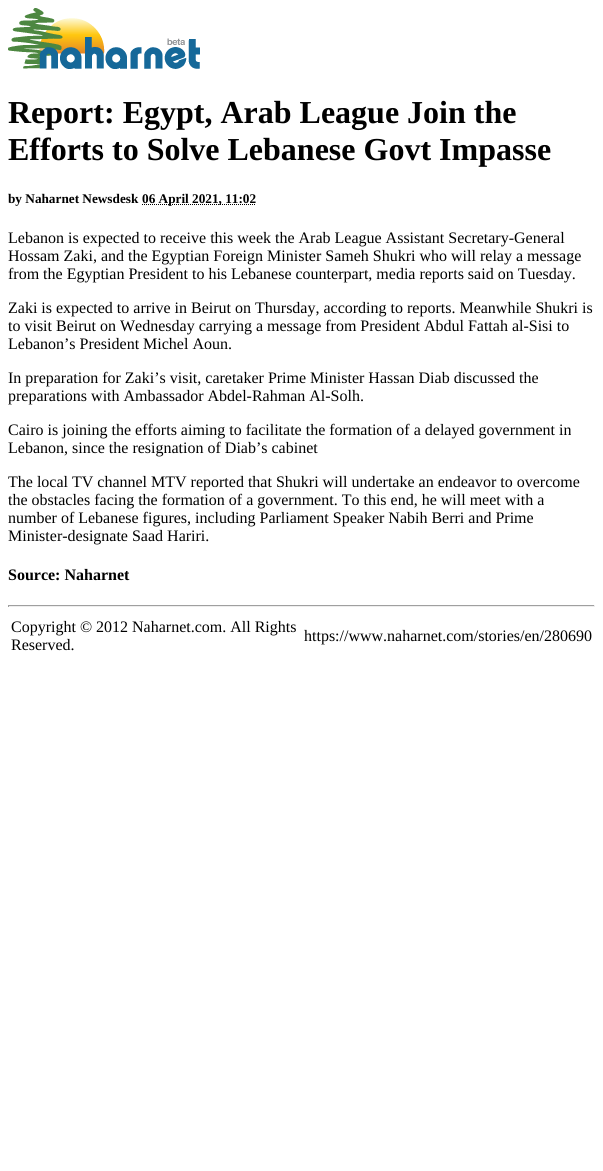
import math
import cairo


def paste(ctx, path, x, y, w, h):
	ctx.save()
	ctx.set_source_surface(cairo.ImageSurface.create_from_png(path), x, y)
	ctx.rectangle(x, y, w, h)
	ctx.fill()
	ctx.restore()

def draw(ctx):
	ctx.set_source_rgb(1, 1, 1)
	ctx.paint()
	paste(ctx, 'media/1.png', 8, 8, 192, 61)
	ctx.select_font_face('Liberation Serif', cairo.FONT_SLANT_NORMAL, cairo.FONT_WEIGHT_BOLD)
	ctx.set_font_size(32)
	ctx.set_source_rgb(0, 0, 0)
	ctx.move_to(8, 123)
	ctx.show_text('Report: Egypt, Arab League Join the')
	ctx.move_to(8, 160)
	ctx.show_text('Efforts to Solve Lebanese Govt Impasse')
	ctx.set_font_size(13.25)
	ctx.move_to(8, 203)
	ctx.show_text('by Naharnet Newsdesk')
	ctx.new_path()
	ctx.move_to(142, 204.5)
	ctx.line_to(256, 204.5)
	ctx.set_line_width(1)
	ctx.set_dash([1, 1])
	ctx.stroke()
	ctx.move_to(142, 203)
	ctx.show_text('06 April 2021, 11:02')
	ctx.select_font_face('Liberation Serif')
	ctx.set_font_size(16)
	for x, y, s in [
		(8, 243, 'Lebanon is expected to receive this week the Arab League Assistant Secretary-General'),
		(8, 261, 'Hossam Zaki, and the Egyptian Foreign Minister Sameh Shukri who will relay a message'),
		(8, 279, 'from the Egyptian President to his Lebanese counterpart, media reports said on Tuesday.'),
		(8, 313, 'Zaki is expected to arrive in Beirut on Thursday, according to reports. Meanwhile Shukri is'),
		(8, 331, 'to visit Beirut on Wednesday carrying a message from President Abdul Fattah al-Sisi to'),
		(8, 349, 'Lebanon’s President Michel Aoun.'),
		(8, 383, 'In preparation for Zaki’s visit, caretaker Prime Minister Hassan Diab discussed the'),
		(8, 401, 'preparations with Ambassador Abdel-Rahman Al-Solh.'),
		(8, 435, 'Cairo is joining the efforts aiming to facilitate the formation of a delayed government in'),
		(8, 453, 'Lebanon, since the resignation of Diab’s cabinet'),
		(8, 487, 'The local TV channel MTV reported that Shukri will undertake an endeavor to overcome'),
		(8, 505, 'the obstacles facing the formation of a government. To this end, he will meet with a'),
		(8, 523, 'number of Lebanese figures, including Parliament Speaker Nabih Berri and Prime'),
		(8, 541, 'Minister-designate Saad Hariri.'),
	]:
		ctx.move_to(x, y)
		ctx.show_text(s)
	ctx.select_font_face('Liberation Serif', cairo.FONT_SLANT_NORMAL, cairo.FONT_WEIGHT_BOLD)
	ctx.move_to(8, 580)
	ctx.show_text('Source: Naharnet')
	ctx.set_source_rgb(0.624, 0.624, 0.624)
	ctx.rectangle(8, 605, 587, 1)
	ctx.fill()
	ctx.set_source_rgb(0.933, 0.933, 0.933)
	ctx.rectangle(594, 605, 1, 2)
	ctx.rectangle(8, 606, 587, 1)
	ctx.fill()
	ctx.set_source_rgb(0.624, 0.624, 0.624)
	ctx.rectangle(8, 605, 1, 2)
	ctx.fill()
	ctx.select_font_face('Liberation Serif')
	ctx.set_source_rgb(0, 0, 0)
	for x, y, s in [
		(11, 632, 'Copyright © 2012 Naharnet.com. All Rights'),
		(11, 650, 'Reserved.'),
		(304, 641, 'https://www.naharnet.com/stories/en/280690'),
	]:
		ctx.move_to(x, y)
		ctx.show_text(s)


surface = cairo.ImageSurface(cairo.FORMAT_RGB24, 603, 1171)
ctx = cairo.Context(surface)
options = cairo.FontOptions()
options.set_hint_metrics(cairo.HINT_METRICS_OFF)
options.set_hint_style(cairo.HINT_STYLE_NONE)
ctx.set_font_options(options)
ctx.set_miter_limit(4)
draw(ctx)
surface.write_to_png('image.png')
